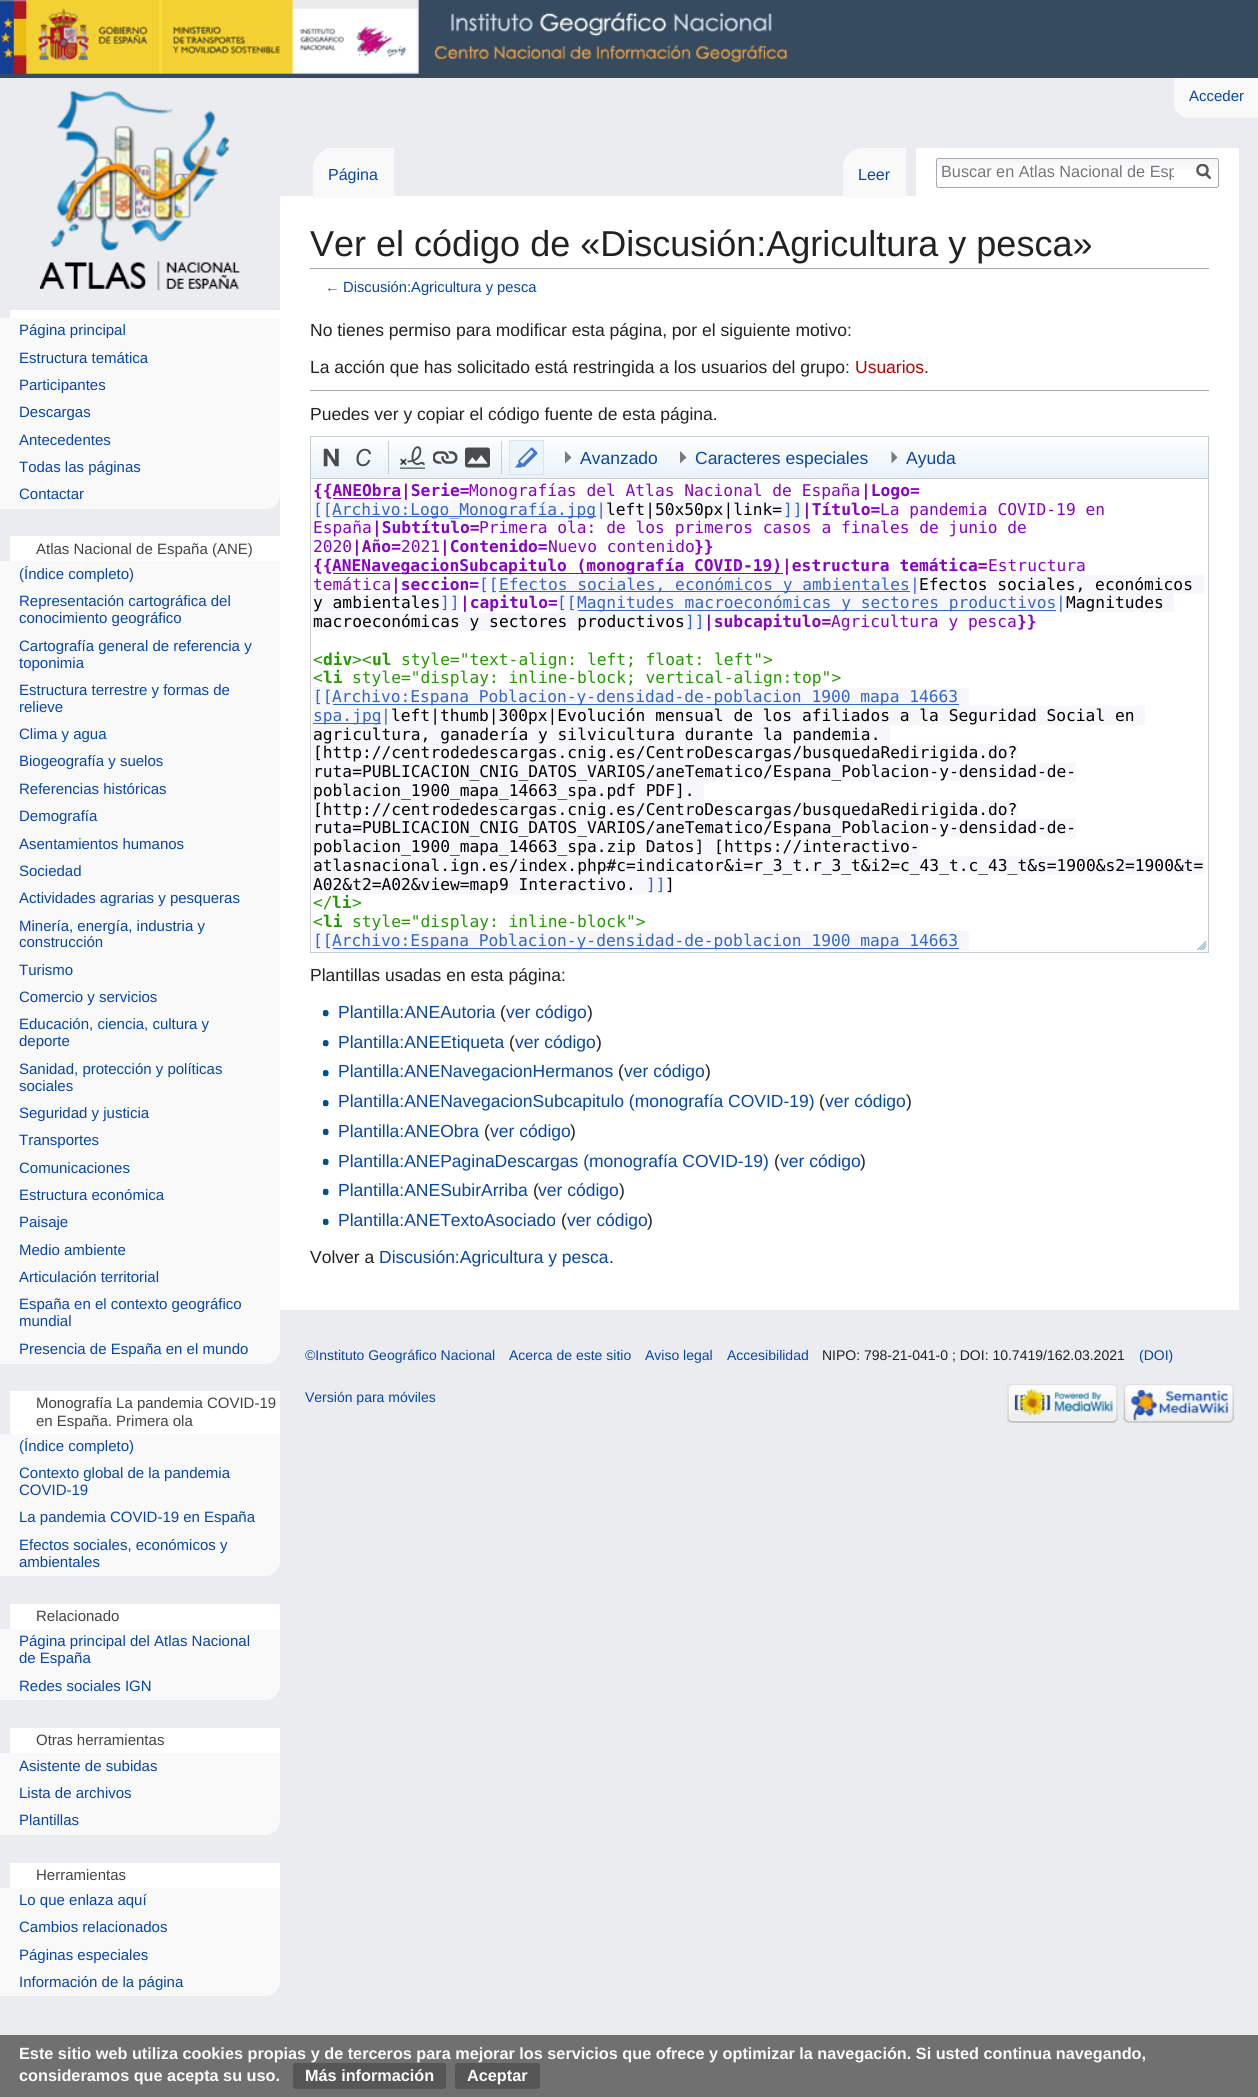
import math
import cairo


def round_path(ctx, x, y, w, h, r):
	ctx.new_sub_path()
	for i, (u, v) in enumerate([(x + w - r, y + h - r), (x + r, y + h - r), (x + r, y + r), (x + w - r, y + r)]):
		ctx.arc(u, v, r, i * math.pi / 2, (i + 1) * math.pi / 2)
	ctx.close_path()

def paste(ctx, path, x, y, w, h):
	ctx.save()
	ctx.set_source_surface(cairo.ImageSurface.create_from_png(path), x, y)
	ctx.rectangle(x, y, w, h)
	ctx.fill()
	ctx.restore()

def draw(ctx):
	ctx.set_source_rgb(0.918, 0.925, 0.941)
	ctx.paint()
	ctx.set_source_rgb(0.212, 0.294, 0.373)
	ctx.rectangle(0, 0, 1258, 78)
	ctx.fill()
	paste(ctx, 'media/1.png', 0, 0, 788, 74)
	ctx.set_source_rgb(0.973, 0.976, 0.98)
	ctx.new_path()
	ctx.move_to(1174, 78)
	ctx.line_to(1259, 78)
	ctx.line_to(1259, 118)
	ctx.line_to(1189, 118)
	ctx.curve_to(1180.5, 118, 1174, 111.5, 1174, 103)
	ctx.close_path()
	ctx.fill()
	ctx.select_font_face('Liberation Sans')
	ctx.set_font_size(15)
	ctx.set_source_rgb(0.024, 0.271, 0.678)
	ctx.move_to(1189, 101)
	ctx.show_text('Acceder')
	ctx.set_source_rgb(1, 1, 1)
	ctx.rectangle(280, 196, 959, 1114)
	ctx.fill()
	ctx.set_source_rgb(0.973, 0.976, 0.98)
	ctx.new_path()
	ctx.move_to(333, 148)
	ctx.line_to(394, 148)
	ctx.line_to(394, 198)
	ctx.line_to(313, 198)
	ctx.line_to(313, 168)
	ctx.curve_to(313, 157, 322, 148, 333, 148)
	ctx.close_path()
	ctx.fill()
	ctx.set_font_size(16)
	ctx.set_source_rgb(0.024, 0.271, 0.678)
	ctx.move_to(328, 180)
	ctx.show_text('Página')
	ctx.set_source_rgb(0.973, 0.976, 0.98)
	ctx.new_path()
	ctx.move_to(863, 148)
	ctx.line_to(906, 148)
	ctx.line_to(906, 198)
	ctx.line_to(843, 198)
	ctx.line_to(843, 168)
	ctx.curve_to(843, 157, 852, 148, 863, 148)
	ctx.close_path()
	ctx.fill()
	ctx.set_source_rgb(0.024, 0.271, 0.678)
	ctx.move_to(858, 180)
	ctx.show_text('Leer')
	ctx.set_source_rgb(1, 1, 1)
	ctx.rectangle(916, 148, 323, 48)
	ctx.fill()
	paste(ctx, 'media/2.png', 936, 159, 283, 10)
	round_path(ctx, 936.5, 158.5, 282, 29, 2)
	ctx.set_source_rgb(0.635, 0.663, 0.694)
	ctx.set_line_width(1)
	ctx.stroke()
	ctx.save()
	ctx.rectangle(941, 161, 233, 19)
	ctx.clip()
	ctx.set_font_size(16.25)
	ctx.set_source_rgb(0.447, 0.467, 0.49)
	ctx.move_to(941, 177)
	ctx.show_text('Buscar en Atlas Nacional de Esp')
	ctx.restore()
	ctx.new_path()
	ctx.move_to(1210.5, 178.5)
	ctx.line_to(1205.5, 173.5)
	ctx.set_source_rgb(0.329, 0.349, 0.365)
	ctx.set_line_width(2.5)
	ctx.stroke()
	ctx.save()
	ctx.rectangle(1196, 164, 15, 16)
	ctx.clip()
	ctx.arc(1202.5, 170, 5, 0, 2 * math.pi)
	ctx.stroke()
	ctx.restore()
	paste(ctx, 'media/3.png', 40, 91, 200, 199)
	ctx.set_source_rgb(1, 1, 1)
	ctx.rectangle(10, 310, 270, 8)
	ctx.fill()
	ctx.set_source_rgb(0.973, 0.976, 0.98)
	ctx.rectangle(0, 318, 280, 163)
	ctx.fill()
	ctx.set_font_size(15)
	ctx.set_source_rgb(0.024, 0.271, 0.678)
	for x, y, s in [
		(19, 335, 'Página principal'),
		(19, 363, 'Estructura temática'),
		(19, 390, 'Participantes'),
		(19, 417, 'Descargas'),
		(19, 445, 'Antecedentes'),
		(19, 472, 'Todas las páginas'),
	]:
		ctx.move_to(x, y)
		ctx.show_text(s)
	ctx.set_source_rgb(0.973, 0.976, 0.98)
	ctx.new_path()
	ctx.move_to(0, 481)
	ctx.line_to(280, 481)
	ctx.line_to(280, 494)
	ctx.curve_to(280, 502.5, 273.5, 509, 265, 509)
	ctx.line_to(0, 509)
	ctx.close_path()
	ctx.fill()
	ctx.set_source_rgb(0.024, 0.271, 0.678)
	ctx.move_to(19, 499)
	ctx.show_text('Contactar')
	ctx.set_source_rgb(1, 1, 1)
	ctx.rectangle(10, 536, 270, 25)
	ctx.fill()
	ctx.set_source_rgb(0.267, 0.267, 0.267)
	ctx.move_to(36, 554)
	ctx.show_text('Atlas Nacional de España (ANE)')
	ctx.set_source_rgb(0.973, 0.976, 0.98)
	ctx.rectangle(0, 561, 280, 775)
	ctx.fill()
	ctx.set_source_rgb(0.024, 0.271, 0.678)
	for x, y, s in [
		(19, 579, '(Índice completo)'),
		(19, 606, 'Representación cartográfica del'),
		(19, 623, 'conocimiento geográfico'),
		(19, 651, 'Cartografía general de referencia y'),
		(19, 668, 'toponimia'),
		(19, 695, 'Estructura terrestre y formas de'),
		(19, 712, 'relieve'),
		(19, 739, 'Clima y agua'),
		(19, 766, 'Biogeografía y suelos'),
		(19, 794, 'Referencias históricas'),
		(19, 821, 'Demografía'),
		(19, 849, 'Asentamientos humanos'),
		(19, 876, 'Sociedad'),
		(19, 903, 'Actividades agrarias y pesqueras'),
		(19, 931, 'Minería, energía, industria y'),
		(19, 947, 'construcción'),
		(19, 975, 'Turismo'),
		(19, 1002, 'Comercio y servicios'),
		(19, 1029, 'Educación, ciencia, cultura y'),
		(19, 1046, 'deporte'),
		(19, 1074, 'Sanidad, protección y políticas'),
		(19, 1091, 'sociales'),
		(19, 1118, 'Seguridad y justicia'),
		(19, 1145, 'Transportes'),
		(19, 1173, 'Comunicaciones'),
		(19, 1200, 'Estructura económica'),
		(19, 1227, 'Paisaje'),
		(19, 1255, 'Medio ambiente'),
		(19, 1282, 'Articulación territorial'),
		(19, 1309, 'España en el contexto geográfico'),
		(19, 1326, 'mundial'),
	]:
		ctx.move_to(x, y)
		ctx.show_text(s)
	ctx.set_source_rgb(0.973, 0.976, 0.98)
	ctx.new_path()
	ctx.move_to(0, 1336)
	ctx.line_to(280, 1336)
	ctx.line_to(280, 1349)
	ctx.curve_to(280, 1357.5, 273.5, 1364, 265, 1364)
	ctx.line_to(0, 1364)
	ctx.close_path()
	ctx.fill()
	ctx.set_source_rgb(0.024, 0.271, 0.678)
	ctx.move_to(19, 1354)
	ctx.show_text('Presencia de España en el mundo')
	ctx.set_source_rgb(1, 1, 1)
	ctx.rectangle(10, 1391, 270, 43)
	ctx.fill()
	ctx.set_source_rgb(0.267, 0.267, 0.267)
	ctx.move_to(36, 1408)
	ctx.show_text('Monografía La pandemia COVID-19')
	ctx.move_to(36, 1426)
	ctx.show_text('en España. Primera ola')
	ctx.set_source_rgb(0.973, 0.976, 0.98)
	ctx.rectangle(0, 1434, 280, 99)
	ctx.fill()
	ctx.set_source_rgb(0.024, 0.271, 0.678)
	for x, y, s in [
		(19, 1451, '(Índice completo)'),
		(19, 1478, 'Contexto global de la pandemia'),
		(19, 1495, 'COVID-19'),
		(19, 1522, 'La pandemia COVID-19 en España'),
	]:
		ctx.move_to(x, y)
		ctx.show_text(s)
	ctx.set_source_rgb(0.973, 0.976, 0.98)
	ctx.new_path()
	ctx.move_to(0, 1533)
	ctx.line_to(280, 1533)
	ctx.line_to(280, 1561)
	ctx.curve_to(280, 1569.5, 273.5, 1576, 265, 1576)
	ctx.line_to(0, 1576)
	ctx.close_path()
	ctx.fill()
	ctx.set_source_rgb(0.024, 0.271, 0.678)
	ctx.move_to(19, 1550)
	ctx.show_text('Efectos sociales, económicos y')
	ctx.move_to(19, 1567)
	ctx.show_text('ambientales')
	ctx.set_source_rgb(1, 1, 1)
	ctx.rectangle(10, 1604, 270, 25)
	ctx.fill()
	ctx.set_source_rgb(0.267, 0.267, 0.267)
	ctx.move_to(36, 1621)
	ctx.show_text('Relacionado')
	ctx.set_source_rgb(0.973, 0.976, 0.98)
	ctx.rectangle(0, 1629, 280, 44)
	ctx.fill()
	ctx.set_source_rgb(0.024, 0.271, 0.678)
	ctx.move_to(19, 1646)
	ctx.show_text('Página principal del Atlas Nacional')
	ctx.move_to(19, 1663)
	ctx.show_text('de España')
	ctx.set_source_rgb(0.973, 0.976, 0.98)
	ctx.new_path()
	ctx.move_to(0, 1673)
	ctx.line_to(280, 1673)
	ctx.line_to(280, 1685)
	ctx.curve_to(280, 1693.5, 273.5, 1700, 265, 1700)
	ctx.line_to(0, 1700)
	ctx.close_path()
	ctx.fill()
	ctx.set_source_rgb(0.024, 0.271, 0.678)
	ctx.move_to(19, 1691)
	ctx.show_text('Redes sociales IGN')
	ctx.set_source_rgb(1, 1, 1)
	ctx.rectangle(10, 1728, 270, 25)
	ctx.fill()
	ctx.set_source_rgb(0.267, 0.267, 0.267)
	ctx.move_to(36, 1745)
	ctx.show_text('Otras herramientas')
	ctx.set_source_rgb(0.973, 0.976, 0.98)
	ctx.rectangle(0, 1753, 280, 55)
	ctx.fill()
	ctx.set_source_rgb(0.024, 0.271, 0.678)
	ctx.move_to(19, 1771)
	ctx.show_text('Asistente de subidas')
	ctx.move_to(19, 1798)
	ctx.show_text('Lista de archivos')
	ctx.set_source_rgb(0.973, 0.976, 0.98)
	ctx.new_path()
	ctx.move_to(0, 1808)
	ctx.line_to(280, 1808)
	ctx.line_to(280, 1820)
	ctx.curve_to(280, 1828.5, 273.5, 1835, 265, 1835)
	ctx.line_to(0, 1835)
	ctx.close_path()
	ctx.fill()
	ctx.set_source_rgb(0.024, 0.271, 0.678)
	ctx.move_to(19, 1825)
	ctx.show_text('Plantillas')
	ctx.set_source_rgb(1, 1, 1)
	ctx.rectangle(10, 1863, 270, 25)
	ctx.fill()
	ctx.set_source_rgb(0.267, 0.267, 0.267)
	ctx.move_to(36, 1880)
	ctx.show_text('Herramientas')
	ctx.set_source_rgb(0.973, 0.976, 0.98)
	ctx.rectangle(0, 1888, 280, 82)
	ctx.fill()
	ctx.set_source_rgb(0.024, 0.271, 0.678)
	for x, y, s in [
		(19, 1905, 'Lo que enlaza aquí'),
		(19, 1932, 'Cambios relacionados'),
		(19, 1960, 'Páginas especiales'),
	]:
		ctx.move_to(x, y)
		ctx.show_text(s)
	ctx.set_source_rgb(0.973, 0.976, 0.98)
	ctx.new_path()
	ctx.move_to(0, 1970)
	ctx.line_to(280, 1970)
	ctx.line_to(280, 1981)
	ctx.curve_to(280, 1989.5, 273.5, 1996, 265, 1996)
	ctx.line_to(0, 1996)
	ctx.close_path()
	ctx.fill()
	ctx.set_source_rgb(0.024, 0.271, 0.678)
	ctx.move_to(19, 1987)
	ctx.show_text('Información de la página')
	ctx.set_source_rgb(0.635, 0.663, 0.694)
	ctx.rectangle(310, 268, 899, 1)
	ctx.fill()
	ctx.set_font_size(36)
	ctx.set_source_rgb(0.133, 0.133, 0.133)
	ctx.move_to(310, 256)
	ctx.show_text('Ver el código de «Discusión:Agricultura y pesca»')
	ctx.set_font_size(14.75)
	ctx.set_source_rgb(0.329, 0.349, 0.365)
	ctx.move_to(325, 292)
	ctx.show_text('←')
	ctx.set_source_rgb(0.024, 0.271, 0.678)
	ctx.move_to(343, 292)
	ctx.show_text('Discusión:Agricultura y pesca')
	ctx.set_font_size(17.5)
	ctx.set_source_rgb(0.133, 0.133, 0.133)
	ctx.move_to(310, 336)
	ctx.show_text('No tienes permiso para modificar esta página, por el siguiente motivo:')
	ctx.move_to(310, 373)
	ctx.show_text('La acción que has solicitado está restringida a los usuarios del grupo:')
	ctx.set_source_rgb(0.729, 0, 0)
	ctx.move_to(855, 373)
	ctx.show_text('Usuarios')
	ctx.set_source_rgb(0.133, 0.133, 0.133)
	ctx.move_to(924, 373)
	ctx.show_text('.')
	ctx.set_source_rgb(0.635, 0.663, 0.694)
	ctx.rectangle(310, 390, 899, 1)
	ctx.fill()
	ctx.set_source_rgb(0.133, 0.133, 0.133)
	ctx.move_to(310, 420)
	ctx.show_text('Puedes ver y copiar el código fuente de esta página.')
	ctx.rectangle(310.5, 436.5, 898, 516)
	ctx.set_source_rgb(0.784, 0.8, 0.82)
	ctx.set_line_width(1)
	ctx.stroke()
	ctx.rectangle(311, 478, 897, 1)
	ctx.fill()
	gradient = cairo.LinearGradient(759, 437, 759, 478)
	gradient.add_color_stop_rgba(0, 0.992, 0.996, 0.996, 1)
	gradient.add_color_stop_rgba(1, 0.91, 0.949, 0.973, 1)
	ctx.set_source(gradient)
	ctx.rectangle(311, 438, 897, 40)
	ctx.fill()
	ctx.set_source_rgb(0.784, 0.8, 0.82)
	ctx.rectangle(388, 441, 1, 33)
	ctx.fill()
	paste(ctx, 'media/4.png', 323, 448, 16, 19)
	paste(ctx, 'media/5.png', 356, 448, 15, 19)
	ctx.rectangle(501, 441, 1, 33)
	ctx.fill()
	paste(ctx, 'media/6.png', 400, 446, 25, 23)
	paste(ctx, 'media/7.png', 433, 451, 25, 13)
	paste(ctx, 'media/8.png', 465, 447, 25, 21)
	ctx.set_source_rgb(0.925, 0.957, 0.976)
	ctx.rectangle(510, 441, 33, 24)
	ctx.fill()
	ctx.rectangle(509.5, 440.5, 34, 34)
	ctx.set_source_rgb(0.855, 0.898, 0.925)
	ctx.stroke()
	paste(ctx, 'media/9.png', 515, 447, 23, 21)
	ctx.set_source_rgb(0.475, 0.475, 0.475)
	ctx.new_path()
	ctx.move_to(565, 451)
	ctx.line_to(571.5, 457.5)
	ctx.line_to(565, 463.5)
	ctx.close_path()
	ctx.fill()
	ctx.set_source_rgb(0.024, 0.271, 0.678)
	ctx.move_to(580, 464)
	ctx.show_text('Avanzado')
	ctx.set_source_rgb(0.475, 0.475, 0.475)
	ctx.new_path()
	ctx.move_to(680, 451)
	ctx.line_to(686.5, 457.5)
	ctx.line_to(680, 463.5)
	ctx.close_path()
	ctx.fill()
	ctx.set_source_rgb(0.024, 0.271, 0.678)
	ctx.move_to(695, 464)
	ctx.show_text('Caracteres especiales')
	ctx.set_source_rgb(0.475, 0.475, 0.475)
	ctx.new_path()
	ctx.move_to(891.5, 451)
	ctx.line_to(897.5, 457.5)
	ctx.line_to(891.5, 463.5)
	ctx.close_path()
	ctx.fill()
	ctx.set_source_rgb(0.024, 0.271, 0.678)
	ctx.move_to(906, 464)
	ctx.show_text('Ayuda')
	ctx.select_font_face('DejaVu Sans Mono', cairo.FONT_SLANT_NORMAL, cairo.FONT_WEIGHT_BOLD)
	ctx.set_font_size(16.25)
	ctx.set_source_rgb(0.533, 0, 0.8)
	ctx.move_to(313, 496)
	ctx.show_text('{{ANEObra|Serie=')
	ctx.rectangle(333, 498, 68, 1)
	ctx.fill()
	ctx.select_font_face('DejaVu Sans Mono')
	ctx.move_to(469, 496)
	ctx.show_text('Monografías del Atlas Nacional de España')
	ctx.select_font_face('DejaVu Sans Mono', cairo.FONT_SLANT_NORMAL, cairo.FONT_WEIGHT_BOLD)
	ctx.move_to(861, 496)
	ctx.show_text('|Logo=')
	ctx.set_source_rgb(0.965, 0.965, 0.984)
	ctx.rectangle(313, 500, 490, 19)
	ctx.fill()
	ctx.select_font_face('DejaVu Sans Mono')
	ctx.set_source_rgb(0.2, 0.4, 0.8)
	ctx.move_to(313, 515)
	ctx.show_text('[[')
	ctx.rectangle(333, 516, 263, 1)
	ctx.fill()
	ctx.move_to(332, 515)
	ctx.show_text('Archivo:Logo_Monografía.jpg|')
	ctx.set_source_rgb(0, 0, 0)
	ctx.move_to(606, 515)
	ctx.show_text('left|50x50px|link=')
	ctx.set_source_rgb(0.2, 0.4, 0.8)
	ctx.move_to(783, 515)
	ctx.show_text(']]')
	ctx.select_font_face('DejaVu Sans Mono', cairo.FONT_SLANT_NORMAL, cairo.FONT_WEIGHT_BOLD)
	ctx.set_source_rgb(0.533, 0, 0.8)
	ctx.move_to(802, 515)
	ctx.show_text('|Título=')
	ctx.select_font_face('DejaVu Sans Mono')
	ctx.move_to(880, 515)
	ctx.show_text('La pandemia COVID-19 en')
	ctx.move_to(313, 533)
	ctx.show_text('España')
	ctx.select_font_face('DejaVu Sans Mono', cairo.FONT_SLANT_NORMAL, cairo.FONT_WEIGHT_BOLD)
	ctx.move_to(372, 533)
	ctx.show_text('|Subtítulo=')
	ctx.select_font_face('DejaVu Sans Mono')
	ctx.move_to(479, 533)
	ctx.show_text('Primera ola: de los primeros casos a finales de junio de')
	ctx.move_to(313, 552)
	ctx.show_text('2020')
	ctx.select_font_face('DejaVu Sans Mono', cairo.FONT_SLANT_NORMAL, cairo.FONT_WEIGHT_BOLD)
	ctx.move_to(352, 552)
	ctx.show_text('|Año=')
	ctx.select_font_face('DejaVu Sans Mono')
	ctx.move_to(401, 552)
	ctx.show_text('2021')
	ctx.select_font_face('DejaVu Sans Mono', cairo.FONT_SLANT_NORMAL, cairo.FONT_WEIGHT_BOLD)
	ctx.move_to(440, 552)
	ctx.show_text('|Contenido=')
	ctx.select_font_face('DejaVu Sans Mono')
	ctx.move_to(548, 552)
	ctx.show_text('Nuevo contenido')
	ctx.select_font_face('DejaVu Sans Mono', cairo.FONT_SLANT_NORMAL, cairo.FONT_WEIGHT_BOLD)
	ctx.move_to(694, 552)
	ctx.show_text('}}')
	ctx.move_to(313, 571)
	ctx.show_text('{{')
	ctx.rectangle(333, 573, 450, 1)
	ctx.fill()
	ctx.move_to(332, 571)
	ctx.show_text('ANENavegacionSubcapitulo (monografía COVID-19)|estructura temática=')
	ctx.select_font_face('DejaVu Sans Mono')
	ctx.move_to(988, 571)
	ctx.show_text('Estructura')
	ctx.move_to(313, 590)
	ctx.show_text('temática')
	ctx.select_font_face('DejaVu Sans Mono', cairo.FONT_SLANT_NORMAL, cairo.FONT_WEIGHT_BOLD)
	ctx.move_to(391, 590)
	ctx.show_text('|seccion=')
	ctx.set_source_rgb(0.965, 0.965, 0.984)
	ctx.rectangle(479, 575, 441, 19)
	ctx.fill()
	ctx.select_font_face('DejaVu Sans Mono')
	ctx.set_source_rgb(0.2, 0.4, 0.8)
	ctx.move_to(479, 590)
	ctx.show_text('[[')
	ctx.rectangle(499, 591, 411, 1)
	ctx.fill()
	ctx.move_to(499, 590)
	ctx.show_text('Efectos sociales, económicos y ambientales|')
	paste(ctx, 'media/10.png', 313, 575, 891, 37)
	ctx.set_source_rgb(0, 0, 0)
	ctx.move_to(919, 590)
	ctx.show_text('Efectos sociales, económicos')
	ctx.move_to(313, 608)
	ctx.show_text('y ambientales')
	ctx.set_source_rgb(0.965, 0.965, 0.984)
	ctx.rectangle(440, 594, 20, 19)
	ctx.fill()
	ctx.set_source_rgb(0.2, 0.4, 0.8)
	ctx.move_to(440, 608)
	ctx.show_text(']]')
	ctx.select_font_face('DejaVu Sans Mono', cairo.FONT_SLANT_NORMAL, cairo.FONT_WEIGHT_BOLD)
	ctx.set_source_rgb(0.533, 0, 0.8)
	ctx.move_to(460, 608)
	ctx.show_text('|capitulo=')
	ctx.set_source_rgb(0.965, 0.965, 0.984)
	ctx.rectangle(557, 594, 21, 19)
	ctx.fill()
	ctx.select_font_face('DejaVu Sans Mono')
	ctx.set_source_rgb(0.2, 0.4, 0.8)
	ctx.move_to(557, 608)
	ctx.show_text('[[')
	ctx.set_source_rgb(0.965, 0.965, 0.984)
	ctx.rectangle(578, 594, 478, 18)
	ctx.fill()
	ctx.set_source_rgb(0.2, 0.4, 0.8)
	ctx.rectangle(578, 610, 478, 1)
	ctx.fill()
	ctx.move_to(577, 608)
	ctx.show_text('Magnitudes macroeconómicas y sectores productivos')
	ctx.set_source_rgb(0.965, 0.965, 0.984)
	ctx.rectangle(1056, 594, 10, 19)
	ctx.fill()
	ctx.set_source_rgb(0.2, 0.4, 0.8)
	ctx.move_to(1056, 608)
	ctx.show_text('|')
	paste(ctx, 'media/11.png', 313, 594, 861, 37)
	ctx.set_source_rgb(0, 0, 0)
	ctx.move_to(1066, 608)
	ctx.show_text('Magnitudes')
	ctx.move_to(313, 627)
	ctx.show_text('macroeconómicas y sectores productivos')
	ctx.set_source_rgb(0.965, 0.965, 0.984)
	ctx.rectangle(685, 612, 19, 19)
	ctx.fill()
	ctx.set_source_rgb(0.2, 0.4, 0.8)
	ctx.move_to(685, 627)
	ctx.show_text(']]')
	ctx.select_font_face('DejaVu Sans Mono', cairo.FONT_SLANT_NORMAL, cairo.FONT_WEIGHT_BOLD)
	ctx.set_source_rgb(0.533, 0, 0.8)
	ctx.move_to(704, 627)
	ctx.show_text('|subcapitulo=')
	ctx.select_font_face('DejaVu Sans Mono')
	ctx.move_to(831, 627)
	ctx.show_text('Agricultura y pesca')
	ctx.select_font_face('DejaVu Sans Mono', cairo.FONT_SLANT_NORMAL, cairo.FONT_WEIGHT_BOLD)
	ctx.move_to(1017, 627)
	ctx.show_text('}}')
	ctx.select_font_face('DejaVu Sans Mono')
	ctx.set_source_rgb(0.133, 0.6, 0)
	ctx.move_to(313, 665)
	ctx.show_text('<')
	ctx.select_font_face('DejaVu Sans Mono', cairo.FONT_SLANT_NORMAL, cairo.FONT_WEIGHT_BOLD)
	ctx.move_to(323, 665)
	ctx.show_text('div')
	ctx.select_font_face('DejaVu Sans Mono')
	ctx.move_to(352, 665)
	ctx.show_text('><')
	ctx.select_font_face('DejaVu Sans Mono', cairo.FONT_SLANT_NORMAL, cairo.FONT_WEIGHT_BOLD)
	ctx.move_to(372, 665)
	ctx.show_text('ul')
	ctx.select_font_face('DejaVu Sans Mono')
	ctx.move_to(401, 665)
	ctx.show_text('style="text-align: left; float: left">')
	ctx.move_to(313, 683)
	ctx.show_text('<')
	ctx.select_font_face('DejaVu Sans Mono', cairo.FONT_SLANT_NORMAL, cairo.FONT_WEIGHT_BOLD)
	ctx.move_to(323, 683)
	ctx.show_text('li')
	ctx.select_font_face('DejaVu Sans Mono')
	ctx.move_to(352, 683)
	ctx.show_text('style="display: inline-block; vertical-align:top">')
	ctx.set_source_rgb(0.965, 0.965, 0.984)
	ctx.rectangle(313, 687, 20, 19)
	ctx.fill()
	ctx.set_source_rgb(0.2, 0.4, 0.8)
	ctx.move_to(313, 702)
	ctx.show_text('[[')
	paste(ctx, 'media/12.png', 313, 688, 656, 37)
	ctx.rectangle(333, 704, 626, 1)
	ctx.fill()
	ctx.move_to(332, 702)
	ctx.show_text('Archivo:Espana Poblacion-y-densidad-de-poblacion 1900 mapa 14663')
	ctx.rectangle(313, 723, 68, 1)
	ctx.fill()
	ctx.move_to(313, 721)
	ctx.show_text('spa.jpg')
	ctx.set_source_rgb(0.965, 0.965, 0.984)
	ctx.rectangle(381, 706, 10, 19)
	ctx.fill()
	ctx.set_source_rgb(0.2, 0.4, 0.8)
	ctx.move_to(381, 721)
	ctx.show_text('|')
	paste(ctx, 'media/13.png', 313, 706, 891, 188)
	ctx.set_source_rgb(0, 0, 0)
	for x, y, s in [
		(391, 721, 'left|thumb|300px|Evolución mensual de los afiliados a la Seguridad Social en'),
		(313, 740, 'agricultura, ganadería y silvicultura durante la pandemia.'),
		(313, 758, '[http://centrodedescargas.cnig.es/CentroDescargas/busquedaRedirigida.do?'),
		(313, 777, 'ruta=PUBLICACION_CNIG_DATOS_VARIOS/aneTematico/Espana_Poblacion-y-densidad-de-'),
		(313, 796, 'poblacion_1900_mapa_14663_spa.pdf PDF].'),
		(313, 815, '[http://centrodedescargas.cnig.es/CentroDescargas/busquedaRedirigida.do?'),
		(313, 833, 'ruta=PUBLICACION_CNIG_DATOS_VARIOS/aneTematico/Espana_Poblacion-y-densidad-de-'),
		(313, 852, 'poblacion_1900_mapa_14663_spa.zip Datos] [https://interactivo-'),
		(313, 871, 'atlasnacional.ign.es/index.php#c=indicator&i=r_3_t.r_3_t&i2=c_43_t.c_43_t&s=1900&s2=1900&t='),
		(313, 890, 'A02&t2=A02&view=map9 Interactivo.'),
	]:
		ctx.move_to(x, y)
		ctx.show_text(s)
	ctx.set_source_rgb(0.965, 0.965, 0.984)
	ctx.rectangle(645, 875, 20, 19)
	ctx.fill()
	ctx.set_source_rgb(0.2, 0.4, 0.8)
	ctx.move_to(646, 890)
	ctx.show_text(']]')
	ctx.set_source_rgb(0, 0, 0)
	ctx.move_to(665, 890)
	ctx.show_text(']')
	ctx.set_source_rgb(0.133, 0.6, 0)
	ctx.move_to(313, 908)
	ctx.show_text('</')
	ctx.select_font_face('DejaVu Sans Mono', cairo.FONT_SLANT_NORMAL, cairo.FONT_WEIGHT_BOLD)
	ctx.move_to(332, 908)
	ctx.show_text('li')
	ctx.select_font_face('DejaVu Sans Mono')
	ctx.move_to(352, 908)
	ctx.show_text('>')
	ctx.move_to(313, 927)
	ctx.show_text('<')
	ctx.select_font_face('DejaVu Sans Mono', cairo.FONT_SLANT_NORMAL, cairo.FONT_WEIGHT_BOLD)
	ctx.move_to(323, 927)
	ctx.show_text('li')
	ctx.select_font_face('DejaVu Sans Mono')
	ctx.move_to(352, 927)
	ctx.show_text('style="display: inline-block">')
	ctx.set_source_rgb(0.965, 0.965, 0.984)
	ctx.rectangle(313, 931, 20, 19)
	ctx.fill()
	ctx.set_source_rgb(0.2, 0.4, 0.8)
	ctx.move_to(313, 946)
	ctx.show_text('[[')
	paste(ctx, 'media/14.png', 313, 931, 656, 20)
	ctx.rectangle(333, 948, 626, 1)
	ctx.fill()
	ctx.move_to(332, 946)
	ctx.show_text('Archivo:Espana Poblacion-y-densidad-de-poblacion 1900 mapa 14663')
	paste(ctx, 'media/15.png', 381, 950, 10, 1)
	paste(ctx, 'media/16.png', 391, 950, 803, 1)
	paste(ctx, 'media/17.png', 1197, 941, 10, 9)
	ctx.select_font_face('Liberation Sans')
	ctx.set_font_size(17.5)
	ctx.set_source_rgb(0.133, 0.133, 0.133)
	ctx.move_to(310, 981)
	ctx.show_text('Plantillas usadas en esta página:')
	paste(ctx, 'media/18.png', 323, 1010, 6, 7)
	ctx.set_source_rgb(0.024, 0.271, 0.678)
	ctx.move_to(338, 1018)
	ctx.show_text('Plantilla:ANEAutoria')
	ctx.set_source_rgb(0.133, 0.133, 0.133)
	ctx.move_to(500, 1018)
	ctx.show_text('(')
	ctx.set_source_rgb(0.024, 0.271, 0.678)
	ctx.move_to(506, 1018)
	ctx.show_text('ver código')
	ctx.set_source_rgb(0.133, 0.133, 0.133)
	ctx.move_to(587, 1018)
	ctx.show_text(')')
	paste(ctx, 'media/18.png', 323, 1040, 6, 7)
	ctx.set_source_rgb(0.024, 0.271, 0.678)
	ctx.move_to(338, 1048)
	ctx.show_text('Plantilla:ANEEtiqueta')
	ctx.set_source_rgb(0.133, 0.133, 0.133)
	ctx.move_to(509, 1048)
	ctx.show_text('(')
	ctx.set_source_rgb(0.024, 0.271, 0.678)
	ctx.move_to(515, 1048)
	ctx.show_text('ver código')
	ctx.set_source_rgb(0.133, 0.133, 0.133)
	ctx.move_to(596, 1048)
	ctx.show_text(')')
	paste(ctx, 'media/18.png', 323, 1070, 6, 7)
	ctx.set_source_rgb(0.024, 0.271, 0.678)
	ctx.move_to(338, 1077)
	ctx.show_text('Plantilla:ANENavegacionHermanos')
	ctx.set_source_rgb(0.133, 0.133, 0.133)
	ctx.move_to(618, 1077)
	ctx.show_text('(')
	ctx.set_source_rgb(0.024, 0.271, 0.678)
	ctx.move_to(624, 1077)
	ctx.show_text('ver código')
	ctx.set_source_rgb(0.133, 0.133, 0.133)
	ctx.move_to(705, 1077)
	ctx.show_text(')')
	paste(ctx, 'media/18.png', 323, 1100, 6, 7)
	ctx.set_source_rgb(0.024, 0.271, 0.678)
	ctx.move_to(338, 1107)
	ctx.show_text('Plantilla:ANENavegacionSubcapitulo (monografía COVID-19)')
	ctx.set_source_rgb(0.133, 0.133, 0.133)
	ctx.move_to(819, 1107)
	ctx.show_text('(')
	ctx.set_source_rgb(0.024, 0.271, 0.678)
	ctx.move_to(825, 1107)
	ctx.show_text('ver código')
	ctx.set_source_rgb(0.133, 0.133, 0.133)
	ctx.move_to(906, 1107)
	ctx.show_text(')')
	paste(ctx, 'media/19.png', 323, 1128, 6, 7)
	ctx.set_source_rgb(0.024, 0.271, 0.678)
	ctx.move_to(338, 1137)
	ctx.show_text('Plantilla:ANEObra')
	ctx.set_source_rgb(0.133, 0.133, 0.133)
	ctx.move_to(484, 1137)
	ctx.show_text('(')
	ctx.set_source_rgb(0.024, 0.271, 0.678)
	ctx.move_to(490, 1137)
	ctx.show_text('ver código')
	ctx.set_source_rgb(0.133, 0.133, 0.133)
	ctx.move_to(570, 1137)
	ctx.show_text(')')
	paste(ctx, 'media/19.png', 323, 1158, 6, 7)
	ctx.set_source_rgb(0.024, 0.271, 0.678)
	ctx.move_to(338, 1167)
	ctx.show_text('Plantilla:ANEPaginaDescargas (monografía COVID-19)')
	ctx.set_source_rgb(0.133, 0.133, 0.133)
	ctx.move_to(774, 1167)
	ctx.show_text('(')
	ctx.set_source_rgb(0.024, 0.271, 0.678)
	ctx.move_to(780, 1167)
	ctx.show_text('ver código')
	ctx.set_source_rgb(0.133, 0.133, 0.133)
	ctx.move_to(860, 1167)
	ctx.show_text(')')
	paste(ctx, 'media/19.png', 323, 1188, 6, 7)
	ctx.set_source_rgb(0.024, 0.271, 0.678)
	ctx.move_to(338, 1196)
	ctx.show_text('Plantilla:ANESubirArriba')
	ctx.set_source_rgb(0.133, 0.133, 0.133)
	ctx.move_to(533, 1196)
	ctx.show_text('(')
	ctx.set_source_rgb(0.024, 0.271, 0.678)
	ctx.move_to(538, 1196)
	ctx.show_text('ver código')
	ctx.set_source_rgb(0.133, 0.133, 0.133)
	ctx.move_to(619, 1196)
	ctx.show_text(')')
	paste(ctx, 'media/19.png', 323, 1218, 6, 7)
	ctx.set_source_rgb(0.024, 0.271, 0.678)
	ctx.move_to(338, 1226)
	ctx.show_text('Plantilla:ANETextoAsociado')
	ctx.set_source_rgb(0.133, 0.133, 0.133)
	ctx.move_to(561, 1226)
	ctx.show_text('(')
	ctx.set_source_rgb(0.024, 0.271, 0.678)
	ctx.move_to(567, 1226)
	ctx.show_text('ver código')
	ctx.set_source_rgb(0.133, 0.133, 0.133)
	ctx.move_to(647, 1226)
	ctx.show_text(')')
	ctx.move_to(310, 1263)
	ctx.show_text('Volver a')
	ctx.set_source_rgb(0.024, 0.271, 0.678)
	ctx.move_to(379, 1263)
	ctx.show_text('Discusión:Agricultura y pesca')
	ctx.set_source_rgb(0.133, 0.133, 0.133)
	ctx.move_to(609, 1263)
	ctx.show_text('.')
	ctx.set_font_size(14)
	ctx.set_source_rgb(0.024, 0.271, 0.678)
	for x, y, s in [
		(305, 1360, '©Instituto Geográfico Nacional'),
		(509, 1360, 'Acerca de este sitio'),
		(645, 1360, 'Aviso legal'),
		(727, 1360, 'Accesibilidad'),
	]:
		ctx.move_to(x, y)
		ctx.show_text(s)
	ctx.set_source_rgb(0.133, 0.133, 0.133)
	ctx.move_to(822, 1360)
	ctx.show_text('NIPO: 798-21-041-0 ; DOI: 10.7419/162.03.2021')
	ctx.set_source_rgb(0.024, 0.271, 0.678)
	ctx.move_to(1139, 1360)
	ctx.show_text('(DOI)')
	ctx.move_to(305, 1402)
	ctx.show_text('Versión para móviles')
	paste(ctx, 'media/20.png', 1007, 1383, 111, 40)
	paste(ctx, 'media/21.png', 1123, 1383, 111, 40)
	ctx.set_source_rgb(0.439, 0.439, 0.443)
	ctx.rectangle(0, 2035, 1258, 62)
	ctx.fill()
	ctx.select_font_face('Liberation Sans', cairo.FONT_SLANT_NORMAL, cairo.FONT_WEIGHT_BOLD)
	ctx.set_font_size(16.25)
	ctx.set_source_rgb(0.988, 0.988, 0.992)
	ctx.move_to(19, 2059)
	ctx.show_text('Este sitio web utiliza cookies propias y de terceros para mejorar los servicios que ofrece y optimizar la navegación. Si usted continua navegando,')
	ctx.move_to(19, 2081)
	ctx.show_text('consideramos que acepta su uso.')
	ctx.set_source_rgb(0.337, 0.337, 0.341)
	round_path(ctx, 293, 2063, 153, 26, 2.5)
	ctx.fill()
	ctx.set_source_rgb(0.988, 0.988, 0.992)
	ctx.move_to(305, 2081)
	ctx.show_text('Más información')
	ctx.set_source_rgb(0.337, 0.337, 0.341)
	round_path(ctx, 455, 2063, 85, 26, 2.5)
	ctx.fill()
	ctx.set_source_rgb(0.988, 0.988, 0.992)
	ctx.move_to(467, 2081)
	ctx.show_text('Aceptar')


surface = cairo.ImageSurface(cairo.FORMAT_RGB24, 1258, 2097)
ctx = cairo.Context(surface)
options = cairo.FontOptions()
options.set_hint_metrics(cairo.HINT_METRICS_OFF)
options.set_hint_style(cairo.HINT_STYLE_NONE)
ctx.set_font_options(options)
ctx.set_miter_limit(4)
draw(ctx)
surface.write_to_png('image.png')
